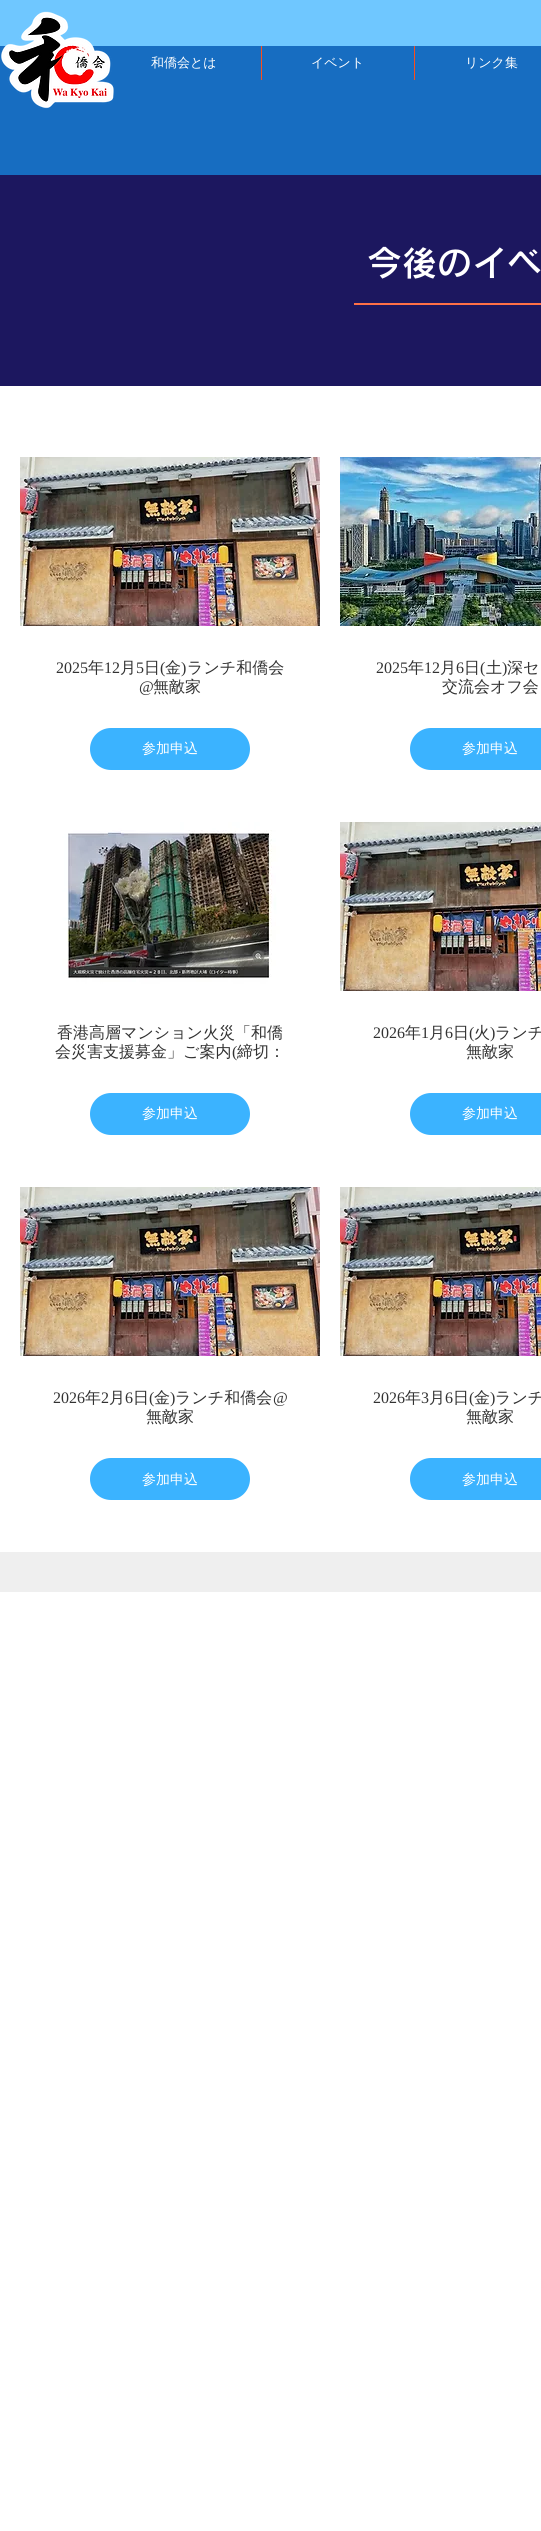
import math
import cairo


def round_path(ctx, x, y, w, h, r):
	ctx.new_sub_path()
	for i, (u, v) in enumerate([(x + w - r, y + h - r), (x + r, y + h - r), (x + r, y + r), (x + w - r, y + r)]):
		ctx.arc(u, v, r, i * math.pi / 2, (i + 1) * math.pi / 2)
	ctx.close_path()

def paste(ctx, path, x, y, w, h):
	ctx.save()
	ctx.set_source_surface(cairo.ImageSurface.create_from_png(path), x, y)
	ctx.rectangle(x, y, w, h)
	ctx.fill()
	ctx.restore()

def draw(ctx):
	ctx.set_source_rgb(1, 1, 1)
	ctx.paint()
	ctx.set_source_rgb(0.435, 0.78, 1)
	ctx.rectangle(0, 0, 541, 46)
	ctx.fill()
	ctx.set_source_rgb(0.09, 0.427, 0.757)
	ctx.rectangle(0, 46, 541, 129)
	ctx.fill()
	paste(ctx, 'media/1.png', 1, 11, 113, 98)
	ctx.select_font_face('WenQuanYi Zen Hei Medium')
	ctx.set_font_size(13)
	ctx.set_source_rgb(1, 1, 1)
	ctx.move_to(151, 67)
	ctx.show_text('和僑会とは')
	ctx.set_source_rgb(0.988, 0.306, 0.102)
	ctx.rectangle(261, 46, 1, 34)
	ctx.fill()
	ctx.set_source_rgb(1, 1, 1)
	ctx.move_to(311, 67)
	ctx.show_text('イベント')
	ctx.set_source_rgb(0.988, 0.306, 0.102)
	ctx.rectangle(414, 46, 1, 34)
	ctx.fill()
	ctx.set_source_rgb(1, 1, 1)
	ctx.move_to(465, 67)
	ctx.show_text('リンク集')
	ctx.set_source_rgb(0.11, 0.09, 0.373)
	ctx.rectangle(0, 175, 541, 211)
	ctx.fill()
	ctx.select_font_face('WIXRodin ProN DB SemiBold')
	ctx.set_font_size(35)
	ctx.set_source_rgb(1, 1, 1)
	ctx.move_to(367, 276)
	ctx.show_text('今後のイベ')
	ctx.set_source_rgb(1, 0.439, 0.275)
	ctx.rectangle(354, 303, 187, 2)
	ctx.fill()
	paste(ctx, 'media/2.png', 20, 457, 300, 169)
	ctx.select_font_face('Liberation Serif')
	ctx.set_font_size(16)
	ctx.set_source_rgb(0.196, 0.196, 0.196)
	ctx.move_to(56, 673)
	ctx.show_text('2025')
	ctx.select_font_face('WenQuanYi Zen Hei Medium')
	ctx.move_to(88, 673)
	ctx.show_text('年')
	ctx.select_font_face('Liberation Serif')
	ctx.move_to(104, 673)
	ctx.show_text('12')
	ctx.select_font_face('WenQuanYi Zen Hei Medium')
	ctx.move_to(120, 673)
	ctx.show_text('月')
	ctx.select_font_face('Liberation Serif')
	ctx.move_to(136, 673)
	ctx.show_text('5')
	ctx.select_font_face('WenQuanYi Zen Hei Medium')
	ctx.move_to(144, 673)
	ctx.show_text('日')
	ctx.select_font_face('Liberation Serif')
	ctx.move_to(160, 673)
	ctx.show_text('(')
	ctx.select_font_face('WenQuanYi Zen Hei Medium')
	ctx.move_to(165, 673)
	ctx.show_text('金')
	ctx.select_font_face('Liberation Serif')
	ctx.move_to(181, 673)
	ctx.show_text(')')
	ctx.select_font_face('WenQuanYi Zen Hei Medium')
	ctx.move_to(187, 673)
	ctx.show_text('ランチ和僑会')
	ctx.select_font_face('Liberation Serif')
	ctx.move_to(139, 692)
	ctx.show_text('@')
	ctx.select_font_face('WenQuanYi Zen Hei Medium')
	ctx.move_to(153, 692)
	ctx.show_text('無敵家')
	ctx.set_source_rgb(0.231, 0.702, 1)
	round_path(ctx, 90, 728, 160, 42, 21)
	ctx.fill()
	ctx.set_font_size(14)
	ctx.set_source_rgb(1, 1, 1)
	ctx.move_to(142, 753)
	ctx.show_text('参加申込')
	paste(ctx, 'media/3.png', 340, 457, 201, 169)
	ctx.select_font_face('Liberation Serif')
	ctx.set_font_size(16)
	ctx.set_source_rgb(0.196, 0.196, 0.196)
	ctx.move_to(376, 673)
	ctx.show_text('2025')
	ctx.select_font_face('WenQuanYi Zen Hei Medium')
	ctx.move_to(408, 673)
	ctx.show_text('年')
	ctx.select_font_face('Liberation Serif')
	ctx.move_to(424, 673)
	ctx.show_text('12')
	ctx.select_font_face('WenQuanYi Zen Hei Medium')
	ctx.move_to(440, 673)
	ctx.show_text('月')
	ctx.select_font_face('Liberation Serif')
	ctx.move_to(456, 673)
	ctx.show_text('6')
	ctx.select_font_face('WenQuanYi Zen Hei Medium')
	ctx.move_to(464, 673)
	ctx.show_text('日')
	ctx.select_font_face('Liberation Serif')
	ctx.move_to(480, 673)
	ctx.show_text('(')
	ctx.select_font_face('WenQuanYi Zen Hei Medium')
	ctx.move_to(486, 673)
	ctx.show_text('土')
	ctx.select_font_face('Liberation Serif')
	ctx.move_to(502, 673)
	ctx.show_text(')')
	ctx.select_font_face('WenQuanYi Zen Hei Medium')
	ctx.move_to(507, 673)
	ctx.show_text('深セ')
	ctx.move_to(442, 692)
	ctx.show_text('交流会オフ会')
	ctx.set_source_rgb(0.231, 0.702, 1)
	round_path(ctx, 410, 728, 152, 42, 21)
	ctx.fill()
	ctx.set_font_size(14)
	ctx.set_source_rgb(1, 1, 1)
	ctx.move_to(462, 753)
	ctx.show_text('参加申込')
	paste(ctx, 'media/4.png', 20, 822, 300, 169)
	ctx.set_font_size(16)
	ctx.set_source_rgb(0.196, 0.196, 0.196)
	ctx.move_to(57, 1038)
	ctx.show_text('香港高層マンション火災「和僑')
	ctx.move_to(55, 1057)
	ctx.show_text('会災害支援募金」ご案内')
	ctx.select_font_face('Liberation Serif')
	ctx.move_to(232, 1057)
	ctx.show_text('(')
	ctx.select_font_face('WenQuanYi Zen Hei Medium')
	ctx.move_to(237, 1057)
	ctx.show_text('締切：')
	ctx.set_source_rgb(0.231, 0.702, 1)
	round_path(ctx, 90, 1093, 160, 42, 21)
	ctx.fill()
	ctx.set_font_size(14)
	ctx.set_source_rgb(1, 1, 1)
	ctx.move_to(142, 1118)
	ctx.show_text('参加申込')
	paste(ctx, 'media/5.png', 340, 822, 201, 169)
	ctx.select_font_face('Liberation Serif')
	ctx.set_font_size(16)
	ctx.set_source_rgb(0.196, 0.196, 0.196)
	ctx.move_to(373, 1038)
	ctx.show_text('2026')
	ctx.select_font_face('WenQuanYi Zen Hei Medium')
	ctx.move_to(405, 1038)
	ctx.show_text('年')
	ctx.select_font_face('Liberation Serif')
	ctx.move_to(421, 1038)
	ctx.show_text('1')
	ctx.select_font_face('WenQuanYi Zen Hei Medium')
	ctx.move_to(429, 1038)
	ctx.show_text('月')
	ctx.select_font_face('Liberation Serif')
	ctx.move_to(445, 1038)
	ctx.show_text('6')
	ctx.select_font_face('WenQuanYi Zen Hei Medium')
	ctx.move_to(453, 1038)
	ctx.show_text('日')
	ctx.select_font_face('Liberation Serif')
	ctx.move_to(469, 1038)
	ctx.show_text('(')
	ctx.select_font_face('WenQuanYi Zen Hei Medium')
	ctx.move_to(474, 1038)
	ctx.show_text('火')
	ctx.select_font_face('Liberation Serif')
	ctx.move_to(490, 1038)
	ctx.show_text(')')
	ctx.select_font_face('WenQuanYi Zen Hei Medium')
	ctx.move_to(495, 1038)
	ctx.show_text('ランチ')
	ctx.move_to(466, 1057)
	ctx.show_text('無敵家')
	ctx.set_source_rgb(0.231, 0.702, 1)
	round_path(ctx, 410, 1093, 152, 42, 21)
	ctx.fill()
	ctx.set_font_size(14)
	ctx.set_source_rgb(1, 1, 1)
	ctx.move_to(462, 1118)
	ctx.show_text('参加申込')
	paste(ctx, 'media/2.png', 20, 1187, 300, 169)
	ctx.select_font_face('Liberation Serif')
	ctx.set_font_size(16)
	ctx.set_source_rgb(0.196, 0.196, 0.196)
	ctx.move_to(53, 1403)
	ctx.show_text('2026')
	ctx.select_font_face('WenQuanYi Zen Hei Medium')
	ctx.move_to(85, 1403)
	ctx.show_text('年')
	ctx.select_font_face('Liberation Serif')
	ctx.move_to(101, 1403)
	ctx.show_text('2')
	ctx.select_font_face('WenQuanYi Zen Hei Medium')
	ctx.move_to(109, 1403)
	ctx.show_text('月')
	ctx.select_font_face('Liberation Serif')
	ctx.move_to(125, 1403)
	ctx.show_text('6')
	ctx.select_font_face('WenQuanYi Zen Hei Medium')
	ctx.move_to(133, 1403)
	ctx.show_text('日')
	ctx.select_font_face('Liberation Serif')
	ctx.move_to(149, 1403)
	ctx.show_text('(')
	ctx.select_font_face('WenQuanYi Zen Hei Medium')
	ctx.move_to(154, 1403)
	ctx.show_text('金')
	ctx.select_font_face('Liberation Serif')
	ctx.move_to(170, 1403)
	ctx.show_text(')')
	ctx.select_font_face('WenQuanYi Zen Hei Medium')
	ctx.move_to(175, 1403)
	ctx.show_text('ランチ和僑会')
	ctx.select_font_face('Liberation Serif')
	ctx.move_to(273, 1403)
	ctx.show_text('@')
	ctx.select_font_face('WenQuanYi Zen Hei Medium')
	ctx.move_to(146, 1422)
	ctx.show_text('無敵家')
	ctx.set_source_rgb(0.231, 0.702, 1)
	round_path(ctx, 90, 1458, 160, 42, 21)
	ctx.fill()
	ctx.set_font_size(14)
	ctx.set_source_rgb(1, 1, 1)
	ctx.move_to(142, 1484)
	ctx.show_text('参加申込')
	paste(ctx, 'media/5.png', 340, 1187, 201, 169)
	ctx.select_font_face('Liberation Serif')
	ctx.set_font_size(16)
	ctx.set_source_rgb(0.196, 0.196, 0.196)
	ctx.move_to(373, 1403)
	ctx.show_text('2026')
	ctx.select_font_face('WenQuanYi Zen Hei Medium')
	ctx.move_to(405, 1403)
	ctx.show_text('年')
	ctx.select_font_face('Liberation Serif')
	ctx.move_to(421, 1403)
	ctx.show_text('3')
	ctx.select_font_face('WenQuanYi Zen Hei Medium')
	ctx.move_to(429, 1403)
	ctx.show_text('月')
	ctx.select_font_face('Liberation Serif')
	ctx.move_to(445, 1403)
	ctx.show_text('6')
	ctx.select_font_face('WenQuanYi Zen Hei Medium')
	ctx.move_to(453, 1403)
	ctx.show_text('日')
	ctx.select_font_face('Liberation Serif')
	ctx.move_to(469, 1403)
	ctx.show_text('(')
	ctx.select_font_face('WenQuanYi Zen Hei Medium')
	ctx.move_to(474, 1403)
	ctx.show_text('金')
	ctx.select_font_face('Liberation Serif')
	ctx.move_to(490, 1403)
	ctx.show_text(')')
	ctx.select_font_face('WenQuanYi Zen Hei Medium')
	ctx.move_to(495, 1403)
	ctx.show_text('ランチ')
	ctx.move_to(466, 1422)
	ctx.show_text('無敵家')
	ctx.set_source_rgb(0.231, 0.702, 1)
	round_path(ctx, 410, 1458, 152, 42, 21)
	ctx.fill()
	ctx.set_font_size(14)
	ctx.set_source_rgb(1, 1, 1)
	ctx.move_to(462, 1484)
	ctx.show_text('参加申込')
	ctx.set_source_rgb(0.937, 0.937, 0.937)
	ctx.rectangle(0, 1552, 541, 40)
	ctx.fill()


surface = cairo.ImageSurface(cairo.FORMAT_RGB24, 541, 2531)
ctx = cairo.Context(surface)
options = cairo.FontOptions()
options.set_hint_metrics(cairo.HINT_METRICS_OFF)
options.set_hint_style(cairo.HINT_STYLE_NONE)
ctx.set_font_options(options)
ctx.set_miter_limit(4)
draw(ctx)
surface.write_to_png('image.png')
